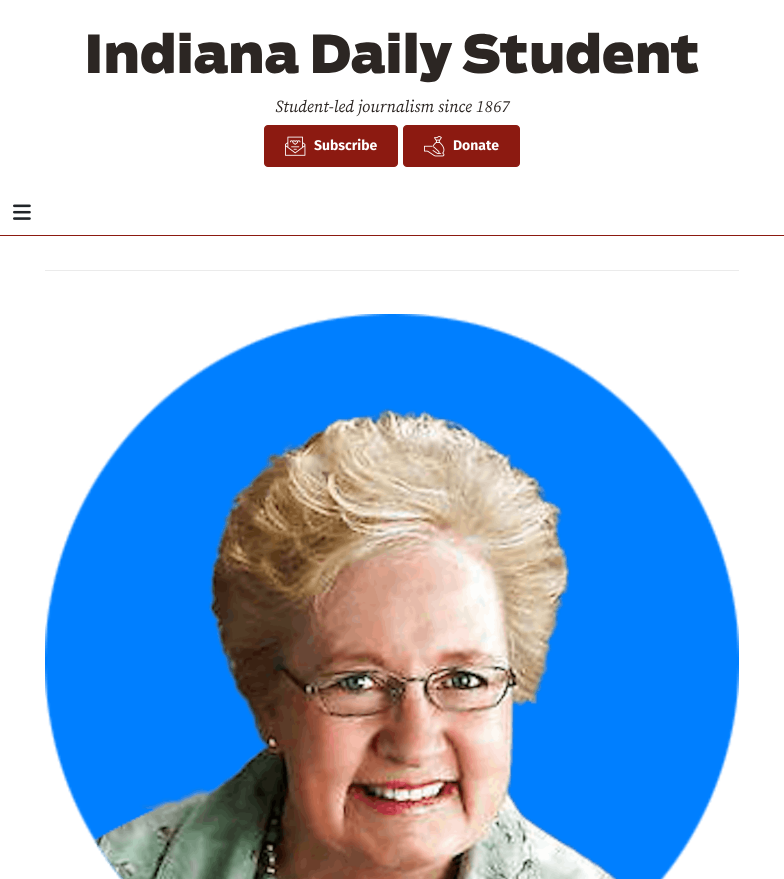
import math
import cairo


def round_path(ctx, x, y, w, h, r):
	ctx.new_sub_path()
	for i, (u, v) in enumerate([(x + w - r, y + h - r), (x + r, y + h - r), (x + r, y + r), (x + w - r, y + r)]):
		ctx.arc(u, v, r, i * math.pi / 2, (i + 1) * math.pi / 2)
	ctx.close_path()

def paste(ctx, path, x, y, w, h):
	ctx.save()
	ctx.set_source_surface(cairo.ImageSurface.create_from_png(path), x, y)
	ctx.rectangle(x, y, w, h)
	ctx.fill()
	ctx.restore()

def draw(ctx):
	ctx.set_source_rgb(1, 1, 1)
	ctx.paint()
	paste(ctx, 'media/1.png', 88, 32, 611, 85)
	ctx.set_source_rgb(0.549, 0.102, 0.067)
	round_path(ctx, 264.5, 125.5, 133, 41, 3.5)
	ctx.fill_preserve()
	ctx.set_line_width(1)
	ctx.stroke()
	paste(ctx, 'media/2.png', 285, 136, 21, 20)
	ctx.select_font_face('Fira Sans', cairo.FONT_SLANT_NORMAL, cairo.FONT_WEIGHT_BOLD)
	ctx.set_font_size(14)
	ctx.set_source_rgb(1, 1, 1)
	ctx.move_to(314, 150)
	ctx.show_text('Subscribe')
	ctx.set_source_rgb(0.549, 0.102, 0.067)
	round_path(ctx, 403.5, 125.5, 116, 41, 3.5)
	ctx.fill_preserve()
	ctx.stroke()
	paste(ctx, 'media/3.png', 424, 136, 21, 21)
	ctx.set_source_rgb(1, 1, 1)
	ctx.move_to(453, 150)
	ctx.show_text('Donate')
	ctx.set_source_rgb(0.549, 0.102, 0.067)
	ctx.rectangle(0, 235, 784, 1)
	ctx.fill()
	paste(ctx, 'media/4.png', 13, 204, 18, 16)
	ctx.set_source_rgb(0.918, 0.918, 0.918)
	ctx.rectangle(45, 270, 694, 1)
	ctx.fill()
	paste(ctx, 'media/5.png', 45, 314, 694, 565)


surface = cairo.ImageSurface(cairo.FORMAT_RGB24, 784, 879)
ctx = cairo.Context(surface)
options = cairo.FontOptions()
options.set_hint_metrics(cairo.HINT_METRICS_OFF)
options.set_hint_style(cairo.HINT_STYLE_NONE)
ctx.set_font_options(options)
ctx.set_miter_limit(4)
draw(ctx)
surface.write_to_png('image.png')
